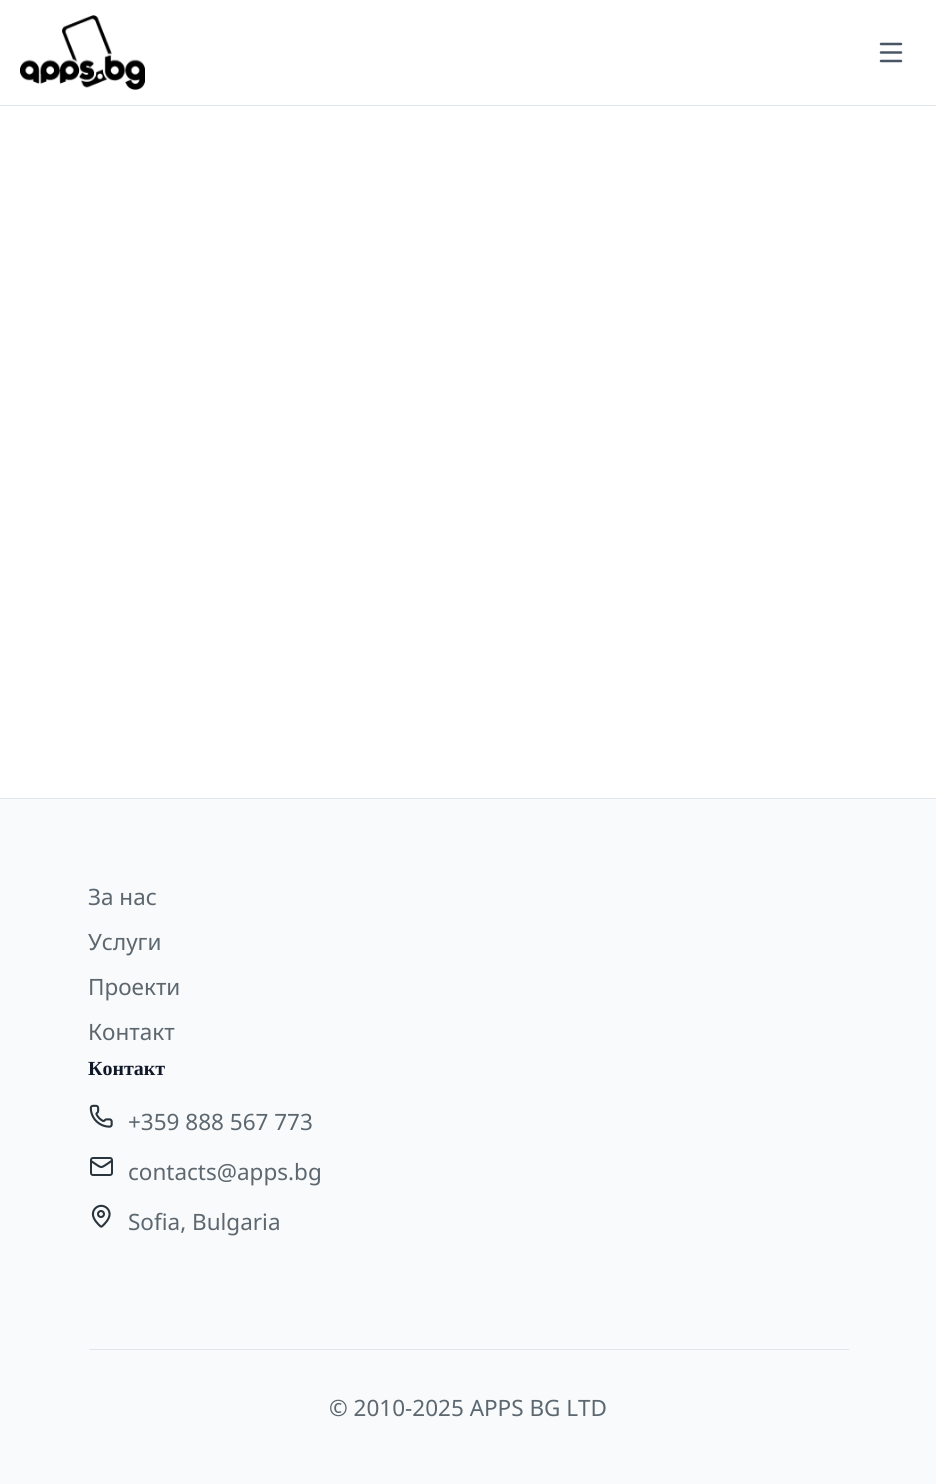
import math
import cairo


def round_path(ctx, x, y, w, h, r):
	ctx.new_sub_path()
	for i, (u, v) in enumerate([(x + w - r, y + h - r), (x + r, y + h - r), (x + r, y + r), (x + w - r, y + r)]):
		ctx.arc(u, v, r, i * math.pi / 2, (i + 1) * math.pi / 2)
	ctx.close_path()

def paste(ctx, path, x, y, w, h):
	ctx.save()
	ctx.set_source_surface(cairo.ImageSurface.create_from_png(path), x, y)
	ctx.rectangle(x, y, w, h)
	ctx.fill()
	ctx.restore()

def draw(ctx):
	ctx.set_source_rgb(1, 1, 1)
	ctx.paint()
	ctx.set_source_rgb(0.878, 0.902, 0.922)
	ctx.rectangle(0, 105, 936, 1)
	ctx.fill()
	paste(ctx, 'media/1.png', 20, 15, 125, 75)
	ctx.new_path()
	ctx.move_to(881, 44)
	ctx.line_to(901, 44)
	ctx.move_to(881, 52.5)
	ctx.line_to(901, 52.5)
	ctx.move_to(881, 61)
	ctx.line_to(901, 61)
	ctx.set_source_rgb(0.29, 0.333, 0.396)
	ctx.set_line_width(2.5)
	ctx.set_line_cap(cairo.LINE_CAP_ROUND)
	ctx.set_line_join(cairo.LINE_JOIN_ROUND)
	ctx.stroke()
	ctx.set_source_rgb(0.976, 0.98, 0.984)
	ctx.rectangle(0, 799, 936, 685)
	ctx.fill()
	ctx.set_source_rgb(0.878, 0.902, 0.922)
	ctx.rectangle(0, 798, 936, 1)
	ctx.fill()
	ctx.select_font_face('Noto Sans')
	ctx.set_font_size(22.5)
	ctx.set_source_rgb(0.361, 0.404, 0.439)
	for x, y, s in [
		(88, 905, 'За нас'),
		(88, 950, 'Услуги'),
		(88, 995, 'Проекти'),
		(88, 1040, 'Контакт'),
	]:
		ctx.move_to(x, y)
		ctx.show_text(s)
	ctx.select_font_face('Liberation Serif', cairo.FONT_SLANT_NORMAL, cairo.FONT_WEIGHT_BOLD)
	ctx.set_font_size(20)
	ctx.set_source_rgb(0.063, 0.094, 0.157)
	ctx.move_to(88, 1075)
	ctx.show_text('Контакт')
	paste(ctx, 'media/2.png', 89, 1104, 24, 24)
	ctx.select_font_face('Noto Sans')
	ctx.set_font_size(22.5)
	ctx.set_source_rgb(0.361, 0.404, 0.439)
	ctx.move_to(128, 1130)
	ctx.show_text('+359 888 567 773')
	ctx.new_path()
	ctx.move_to(111.5, 1161)
	ctx.curve_to(99, 1169, 103.5, 1169, 91, 1161)
	ctx.set_source_rgb(0.161, 0.204, 0.239)
	ctx.set_line_width(2.1)
	ctx.stroke()
	round_path(ctx, 91, 1158, 21, 17, 2)
	ctx.set_line_width(2)
	ctx.set_line_cap(cairo.LINE_CAP_BUTT)
	ctx.set_line_join(cairo.LINE_JOIN_MITER)
	ctx.stroke()
	ctx.set_source_rgb(0.361, 0.404, 0.439)
	ctx.move_to(128, 1180)
	ctx.show_text('contacts@apps.bg')
	paste(ctx, 'media/3.png', 91, 1204, 20, 24)
	ctx.move_to(128, 1230)
	ctx.show_text('Sofia, Bulgaria')
	ctx.set_source_rgb(0.878, 0.902, 0.922)
	ctx.rectangle(89, 1349, 760, 1)
	ctx.fill()
	ctx.set_source_rgb(0.361, 0.404, 0.439)
	ctx.move_to(329, 1416)
	ctx.show_text('© 2010-2025 APPS BG LTD')


surface = cairo.ImageSurface(cairo.FORMAT_RGB24, 936, 1484)
ctx = cairo.Context(surface)
options = cairo.FontOptions()
options.set_hint_metrics(cairo.HINT_METRICS_OFF)
options.set_hint_style(cairo.HINT_STYLE_NONE)
ctx.set_font_options(options)
ctx.set_miter_limit(4)
draw(ctx)
surface.write_to_png('image.png')
